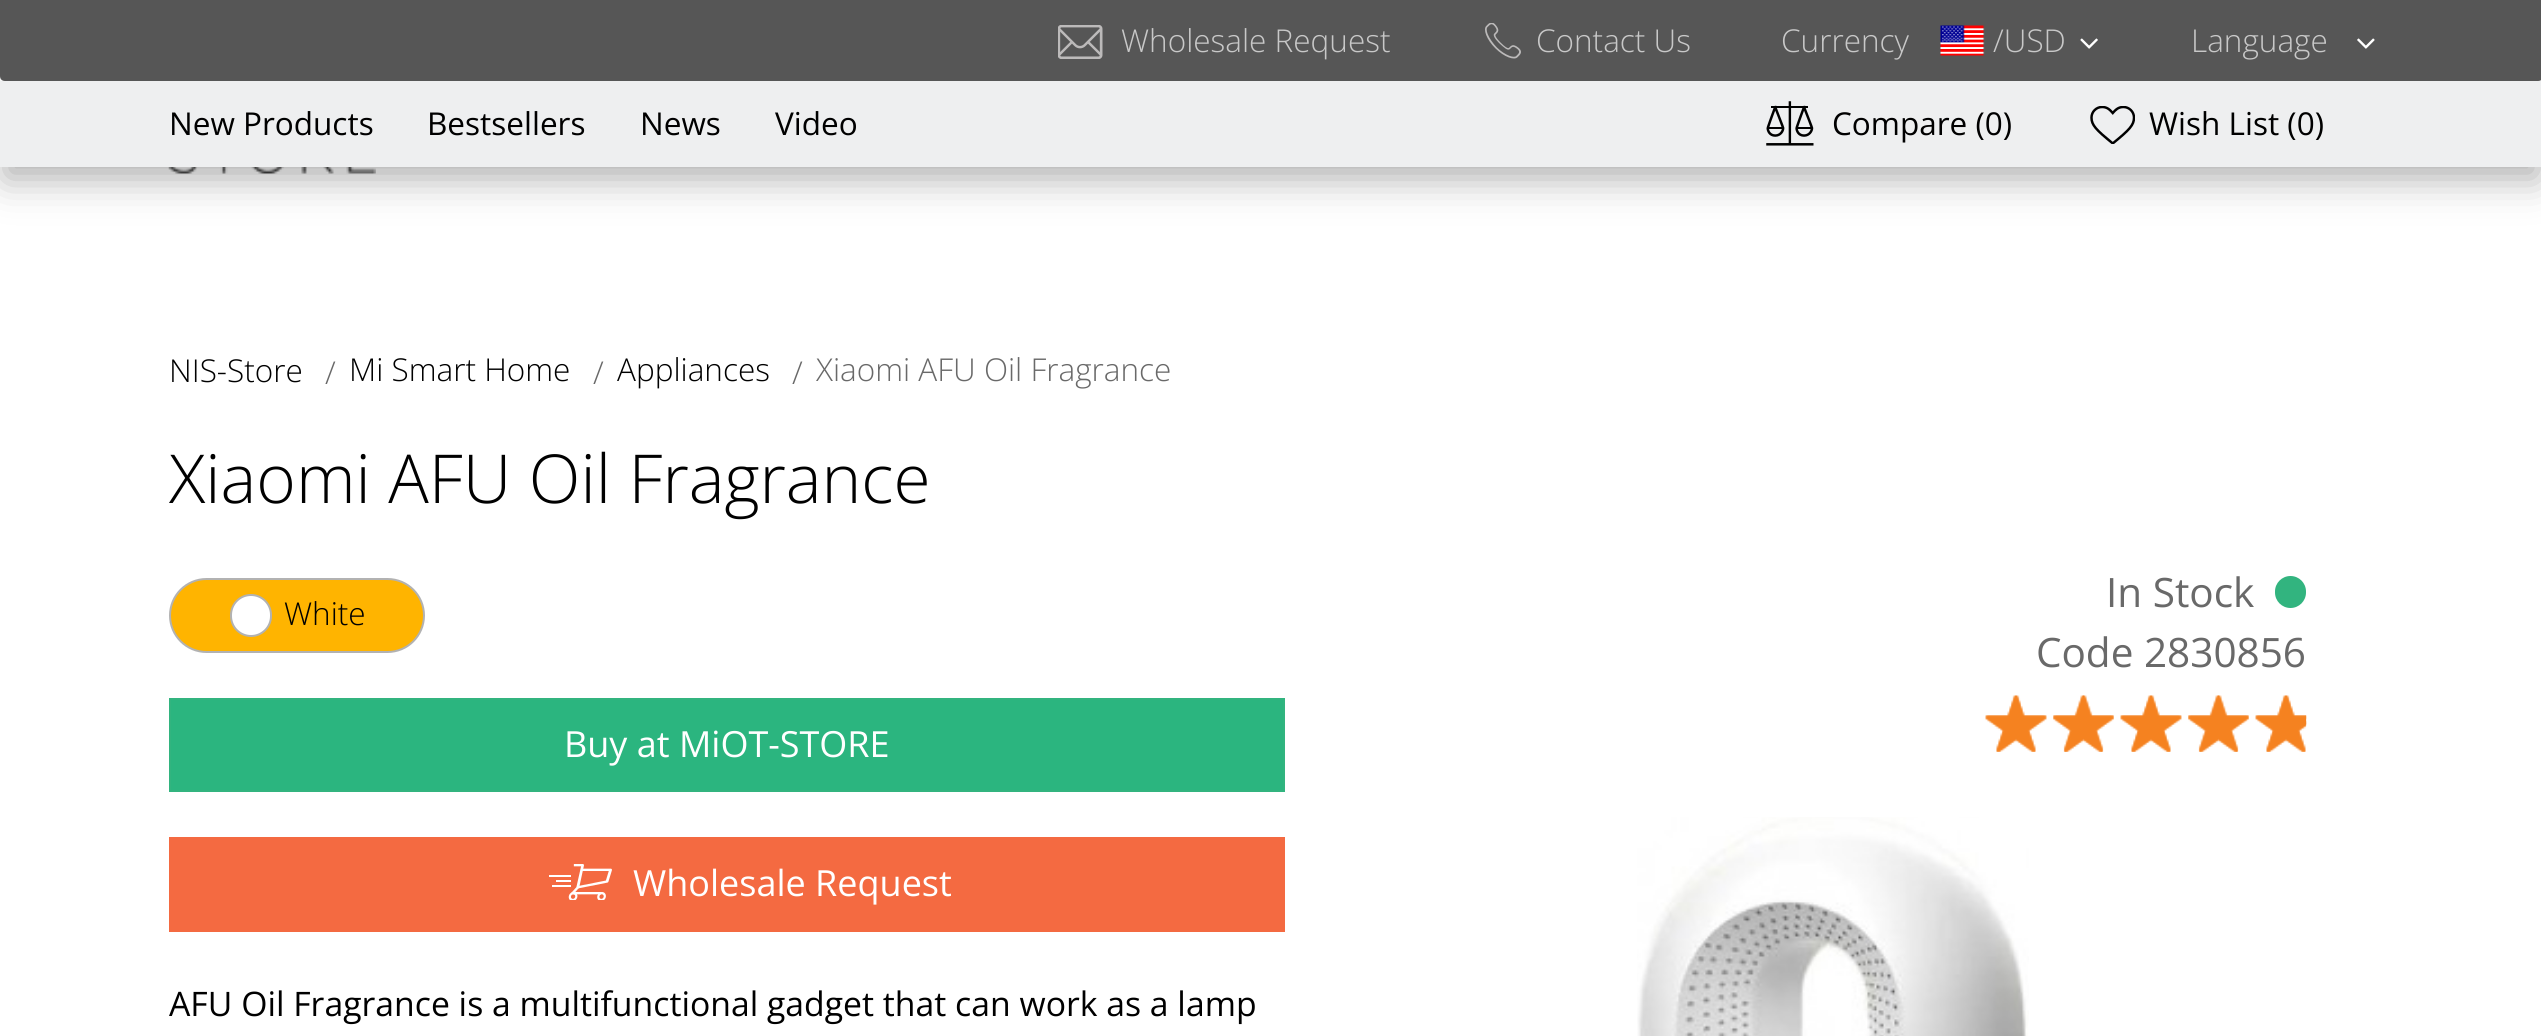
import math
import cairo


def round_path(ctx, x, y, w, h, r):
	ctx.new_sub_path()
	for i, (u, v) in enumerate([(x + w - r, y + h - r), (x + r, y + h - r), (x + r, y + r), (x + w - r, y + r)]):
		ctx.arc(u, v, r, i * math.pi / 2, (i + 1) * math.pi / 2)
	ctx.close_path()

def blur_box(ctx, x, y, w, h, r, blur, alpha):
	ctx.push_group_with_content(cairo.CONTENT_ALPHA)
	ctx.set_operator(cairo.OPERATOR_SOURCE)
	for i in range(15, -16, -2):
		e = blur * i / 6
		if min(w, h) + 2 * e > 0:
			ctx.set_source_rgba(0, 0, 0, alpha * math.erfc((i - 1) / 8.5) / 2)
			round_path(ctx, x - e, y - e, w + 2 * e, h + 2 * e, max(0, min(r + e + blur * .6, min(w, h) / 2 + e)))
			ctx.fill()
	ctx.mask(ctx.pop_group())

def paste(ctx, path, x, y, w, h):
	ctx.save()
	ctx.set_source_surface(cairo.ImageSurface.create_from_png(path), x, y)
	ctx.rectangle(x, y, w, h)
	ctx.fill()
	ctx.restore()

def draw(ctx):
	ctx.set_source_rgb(1, 1, 1)
	ctx.paint()
	paste(ctx, 'media/8.png', 168, 167, 208, 7)
	ctx.set_source_rgb(0.459, 0.459, 0.459)
	blur_box(ctx, 5, 101, 2533, 77, 0, 19, 0.6)
	ctx.set_source_rgb(0.337, 0.337, 0.337)
	ctx.new_path()
	ctx.move_to(0, 0)
	ctx.line_to(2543, 0)
	ctx.line_to(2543, 76)
	ctx.curve_to(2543, 79, 2541, 81, 2538, 81)
	ctx.line_to(5, 81)
	ctx.curve_to(2, 81, 0, 79, 0, 76)
	ctx.close_path()
	ctx.fill()
	paste(ctx, 'media/1.png', 1058, 25, 45, 34)
	ctx.select_font_face('Open Sans Light')
	ctx.set_font_size(31.5)
	ctx.set_source_rgb(0.784, 0.784, 0.784)
	ctx.move_to(1121, 52)
	ctx.show_text('Wholesale Request')
	paste(ctx, 'media/2.png', 1485, 23, 36, 36)
	ctx.move_to(1536, 52)
	ctx.show_text('Contact Us')
	ctx.move_to(1781, 52)
	ctx.show_text('Currency')
	paste(ctx, 'media/3.png', 1940, 25, 45, 31)
	ctx.move_to(1993, 52)
	ctx.show_text('/USD')
	paste(ctx, 'media/4.png', 2080, 38, 18, 11)
	ctx.move_to(2191, 52)
	ctx.show_text('Language')
	paste(ctx, 'media/5.png', 2357, 38, 18, 11)
	ctx.set_source_rgb(0.933, 0.937, 0.941)
	ctx.rectangle(0, 81, 2541, 86)
	ctx.fill()
	ctx.select_font_face('Open Sans')
	ctx.set_source_rgb(0, 0, 0)
	for x, y, s in [
		(169, 135, 'New Products'),
		(427, 135, 'Bestsellers'),
		(640, 135, 'News'),
		(775, 135, 'Video'),
	]:
		ctx.move_to(x, y)
		ctx.show_text(s)
	paste(ctx, 'media/6.png', 1766, 101, 48, 45)
	ctx.move_to(1832, 135)
	ctx.show_text('Compare (0)')
	paste(ctx, 'media/7.png', 2090, 106, 45, 38)
	ctx.move_to(2149, 135)
	ctx.show_text('Wish List (0)')
	ctx.select_font_face('Open Sans Light')
	ctx.move_to(169, 382)
	ctx.show_text('NIS-Store')
	ctx.set_source_rgb(0.412, 0.412, 0.412)
	ctx.move_to(325, 384)
	ctx.show_text('/')
	ctx.set_source_rgb(0, 0, 0)
	ctx.move_to(349, 381)
	ctx.show_text('Mi Smart Home')
	ctx.set_source_rgb(0.412, 0.412, 0.412)
	ctx.move_to(593, 384)
	ctx.show_text('/')
	ctx.set_source_rgb(0, 0, 0)
	ctx.move_to(617, 381)
	ctx.show_text('Appliances')
	ctx.set_source_rgb(0.412, 0.412, 0.412)
	ctx.move_to(792, 384)
	ctx.show_text('/')
	ctx.move_to(816, 381)
	ctx.show_text('Xiaomi AFU Oil Fragrance')
	ctx.set_font_size(67.5)
	ctx.set_source_rgb(0, 0, 0)
	ctx.move_to(169, 503)
	ctx.show_text('Xiaomi AFU Oil Fragrance')
	ctx.set_source_rgb(1, 0.706, 0)
	round_path(ctx, 170, 579, 254, 73, 36.5)
	ctx.fill_preserve()
	ctx.set_source_rgb(0.698, 0.698, 0.698)
	ctx.stroke()
	ctx.set_source_rgb(1, 1, 1)
	round_path(ctx, 231, 595, 40, 41, 20)
	ctx.fill_preserve()
	ctx.set_source_rgb(0.698, 0.698, 0.698)
	ctx.stroke()
	ctx.set_font_size(31.5)
	ctx.set_source_rgb(0, 0, 0)
	ctx.move_to(284, 625)
	ctx.show_text('White')
	ctx.set_source_rgb(0.169, 0.71, 0.498)
	ctx.rectangle(170, 699, 1114, 92)
	ctx.fill_preserve()
	ctx.set_source_rgb(0.196, 0.706, 0.498)
	ctx.stroke()
	ctx.select_font_face('Open Sans')
	ctx.set_font_size(36)
	ctx.set_source_rgb(1, 1, 1)
	ctx.move_to(564, 757)
	ctx.show_text('Buy at MiOT-STORE')
	ctx.set_source_rgb(0.957, 0.416, 0.255)
	ctx.rectangle(169, 837, 1116, 95)
	ctx.fill()
	paste(ctx, 'media/9.png', 549, 864, 63, 36)
	ctx.set_source_rgb(1, 1, 1)
	ctx.move_to(633, 896)
	ctx.show_text('Wholesale Request')
	ctx.set_font_size(33.75)
	ctx.set_source_rgb(0, 0, 0)
	ctx.move_to(169, 1016)
	ctx.show_text('AFU Oil Fragrance is a multifunctional gadget that can work as a lamp')
	ctx.set_font_size(40.5)
	ctx.set_source_rgb(0.412, 0.412, 0.412)
	ctx.move_to(2106, 607)
	ctx.show_text('In Stock')
	ctx.set_source_rgb(0.196, 0.706, 0.498)
	round_path(ctx, 2275, 576, 31, 32, 15.5)
	ctx.fill()
	ctx.set_source_rgb(0.412, 0.412, 0.412)
	ctx.move_to(2036, 667)
	ctx.show_text('Code 2830856')
	paste(ctx, 'media/10.png', 1985, 695, 322, 57)
	paste(ctx, 'media/11.png', 1985, 695, 322, 57)
	paste(ctx, 'media/12.png', 1637, 817, 392, 219)


surface = cairo.ImageSurface(cairo.FORMAT_RGB24, 2541, 1036)
ctx = cairo.Context(surface)
options = cairo.FontOptions()
options.set_hint_metrics(cairo.HINT_METRICS_OFF)
options.set_hint_style(cairo.HINT_STYLE_NONE)
ctx.set_font_options(options)
ctx.set_miter_limit(4)
draw(ctx)
surface.write_to_png('image.png')
